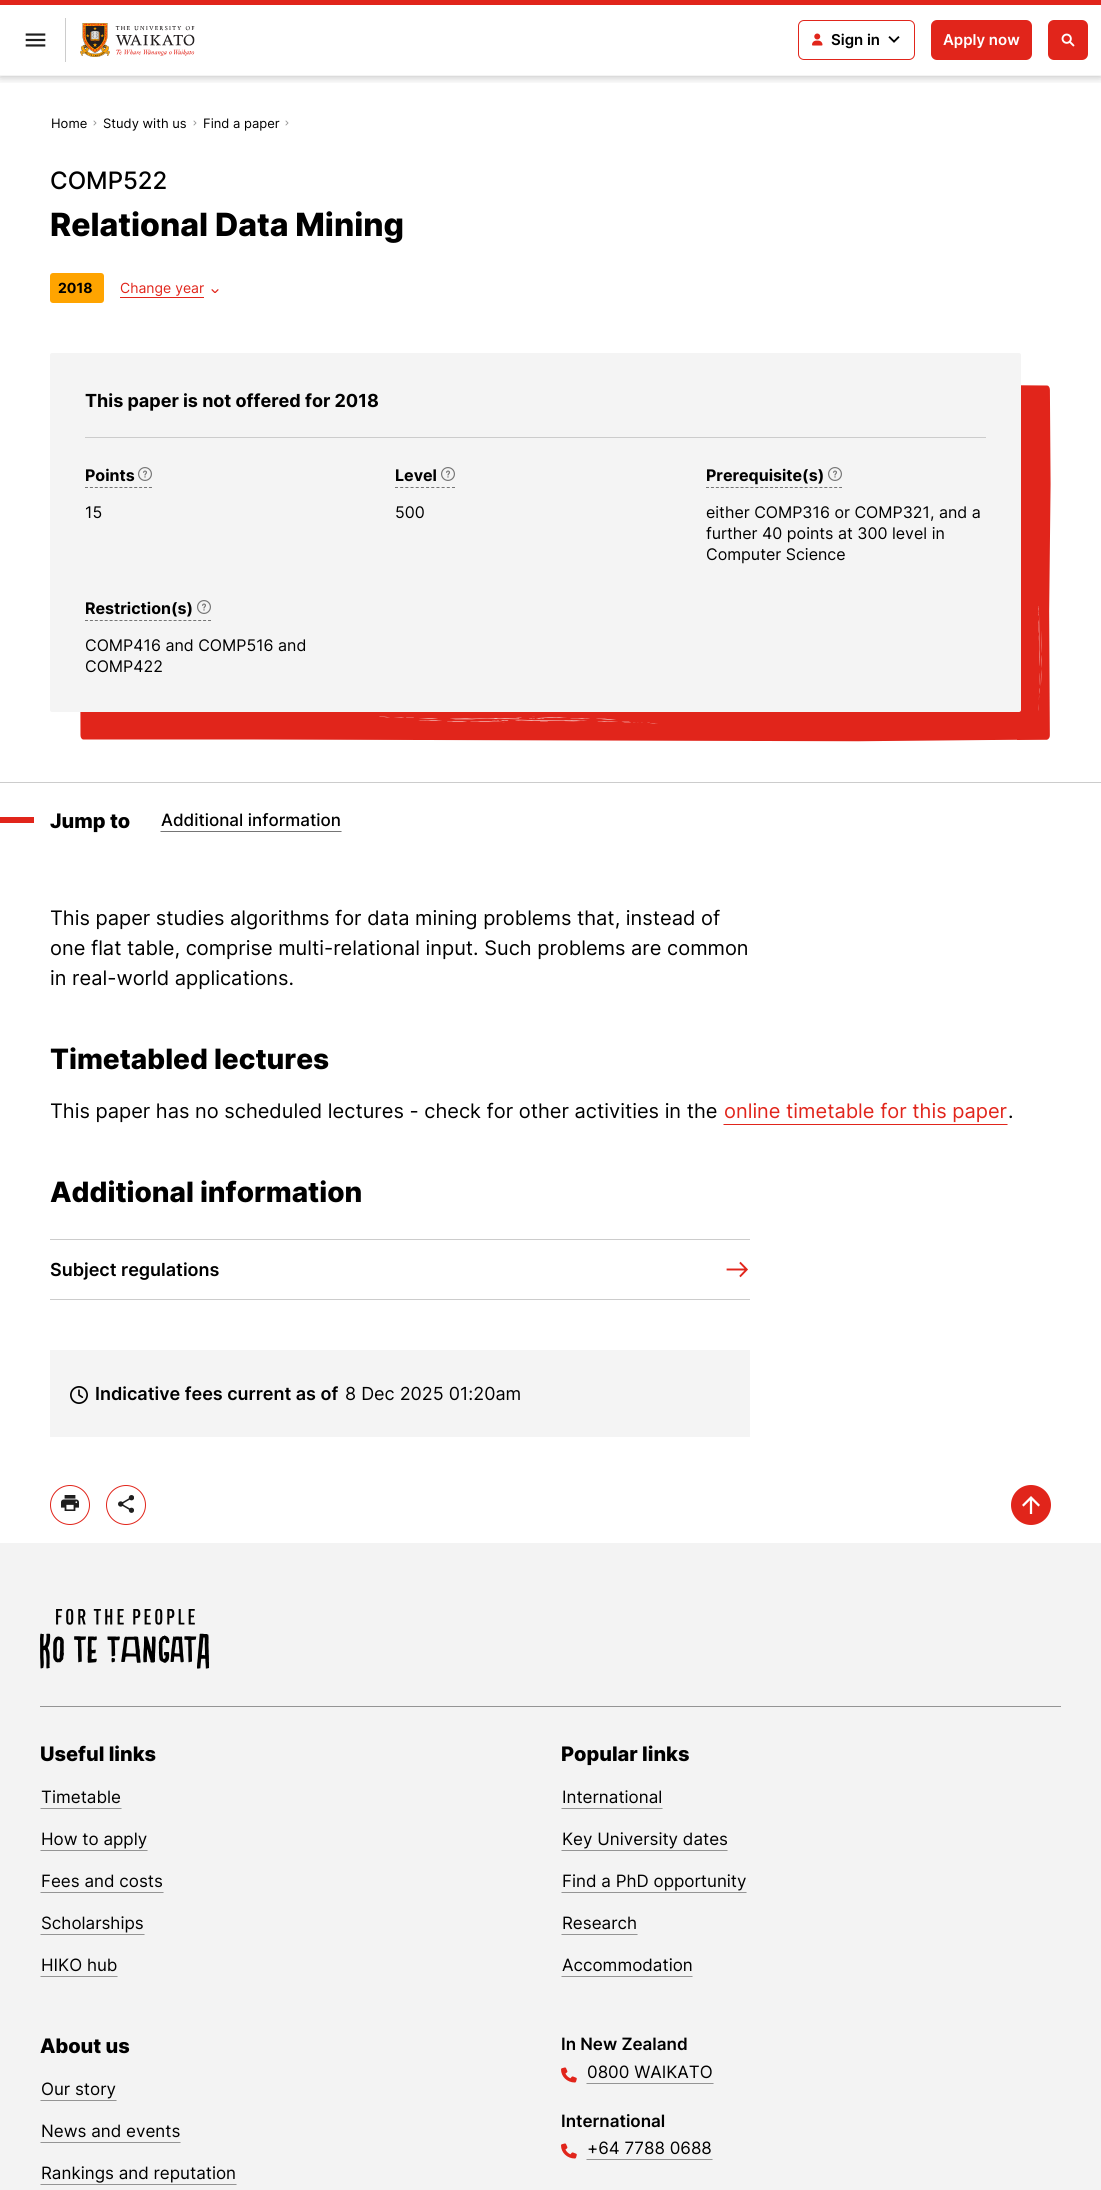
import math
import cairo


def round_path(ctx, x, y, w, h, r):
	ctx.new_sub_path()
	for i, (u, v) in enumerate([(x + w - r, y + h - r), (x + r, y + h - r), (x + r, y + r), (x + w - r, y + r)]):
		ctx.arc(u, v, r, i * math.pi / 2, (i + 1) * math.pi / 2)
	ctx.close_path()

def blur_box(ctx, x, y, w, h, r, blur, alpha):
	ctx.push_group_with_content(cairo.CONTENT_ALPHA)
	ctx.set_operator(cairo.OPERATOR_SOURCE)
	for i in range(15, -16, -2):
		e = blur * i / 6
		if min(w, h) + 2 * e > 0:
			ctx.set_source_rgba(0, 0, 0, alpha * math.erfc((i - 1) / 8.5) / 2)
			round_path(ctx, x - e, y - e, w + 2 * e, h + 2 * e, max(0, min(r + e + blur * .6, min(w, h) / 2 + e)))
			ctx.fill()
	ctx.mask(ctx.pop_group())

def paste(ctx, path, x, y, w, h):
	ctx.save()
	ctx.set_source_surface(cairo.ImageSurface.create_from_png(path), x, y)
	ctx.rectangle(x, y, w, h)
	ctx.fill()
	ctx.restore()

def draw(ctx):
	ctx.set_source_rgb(1, 1, 1)
	ctx.paint()
	ctx.save()
	ctx.rectangle(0, 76, 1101, 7)
	ctx.clip()
	ctx.set_source_rgb(0, 0, 0)
	blur_box(ctx, 0, 0, 1101, 76, 0, 5, 0.3)
	ctx.restore()
	ctx.set_source_rgb(0.882, 0.145, 0.106)
	ctx.rectangle(0, 0, 1101, 5)
	ctx.fill()
	ctx.set_source_rgb(0.957, 0.957, 0.957)
	ctx.rectangle(0, 75, 1101, 1)
	ctx.fill()
	ctx.set_source_rgb(0.8, 0.8, 0.8)
	ctx.rectangle(65, 18, 1, 44)
	ctx.fill()
	paste(ctx, 'media/1.png', 25, 33, 21, 14)
	paste(ctx, 'media/2.png', 80, 23, 115, 34)
	round_path(ctx, 798.5, 20.5, 116, 39, 5.5)
	ctx.set_source_rgb(0.882, 0.145, 0.106)
	ctx.set_line_width(1)
	ctx.stroke()
	paste(ctx, 'media/3.png', 812, 33, 11, 13)
	ctx.select_font_face('Inter SemiBold')
	ctx.set_font_size(15)
	ctx.set_source_rgb(0, 0, 0)
	ctx.move_to(831, 45)
	ctx.show_text('Sign in')
	paste(ctx, 'media/4.png', 888, 36, 12, 7)
	ctx.set_source_rgb(0.882, 0.145, 0.106)
	round_path(ctx, 931, 20, 101, 40, 6)
	ctx.fill()
	ctx.set_source_rgb(1, 1, 1)
	ctx.move_to(943, 45)
	ctx.show_text('Apply now')
	ctx.set_source_rgb(0.882, 0.145, 0.106)
	round_path(ctx, 1048, 20, 40, 40, 6)
	ctx.fill()
	paste(ctx, 'media/5.png', 1061, 33, 14, 14)
	ctx.set_source_rgb(0.8, 0.8, 0.8)
	ctx.rectangle(0, 782, 1101, 1)
	ctx.fill()
	ctx.select_font_face('Inter')
	ctx.set_font_size(13)
	ctx.set_source_rgb(0, 0, 0)
	ctx.move_to(51, 128)
	ctx.show_text('Home')
	paste(ctx, 'media/6.png', 93, 120, 4, 6)
	ctx.move_to(103, 128)
	ctx.show_text('Study with us')
	paste(ctx, 'media/6.png', 193, 120, 4, 6)
	ctx.move_to(203, 128)
	ctx.show_text('Find a paper')
	paste(ctx, 'media/6.png', 285, 120, 4, 6)
	ctx.select_font_face('Inter Medium')
	ctx.set_font_size(24)
	ctx.move_to(50, 189)
	ctx.show_text('COMP522')
	ctx.select_font_face('Inter ExtraBold')
	ctx.set_font_size(32)
	ctx.move_to(50, 236)
	ctx.show_text('Relational Data Mining')
	ctx.set_source_rgb(1, 0.643, 0)
	round_path(ctx, 50, 273, 54, 30, 3)
	ctx.fill()
	ctx.select_font_face('Inter', cairo.FONT_SLANT_NORMAL, cairo.FONT_WEIGHT_BOLD)
	ctx.set_font_size(14)
	ctx.set_source_rgb(0, 0, 0)
	ctx.move_to(58, 293)
	ctx.show_text('2018')
	ctx.select_font_face('Inter')
	ctx.set_source_rgb(0.882, 0.145, 0.106)
	ctx.move_to(120, 293)
	ctx.show_text('Change year')
	ctx.rectangle(120, 297, 84, 1)
	ctx.fill()
	paste(ctx, 'media/7.png', 211, 289, 8, 4)
	paste(ctx, 'media/8.png', 80, 385, 971, 357)
	ctx.set_source_rgb(0.957, 0.957, 0.957)
	round_path(ctx, 50, 353, 971, 359, 2)
	ctx.fill()
	ctx.set_source_rgb(0.8, 0.8, 0.8)
	ctx.rectangle(85, 437, 901, 1)
	ctx.fill()
	ctx.select_font_face('Inter', cairo.FONT_SLANT_NORMAL, cairo.FONT_WEIGHT_BOLD)
	ctx.set_font_size(18)
	ctx.set_source_rgb(0, 0, 0)
	ctx.move_to(85, 407)
	ctx.show_text('This paper is not offered for 2018')
	ctx.new_path()
	ctx.move_to(85, 487.5)
	ctx.line_to(152, 487.5)
	ctx.set_source_rgb(0.459, 0.459, 0.459)
	ctx.set_dash([3, 1.92])
	ctx.stroke()
	ctx.set_font_size(16)
	ctx.set_source_rgb(0, 0, 0)
	ctx.move_to(85, 481)
	ctx.show_text('Points')
	paste(ctx, 'media/9.png', 138, 467, 14, 14)
	ctx.select_font_face('Inter')
	ctx.move_to(85, 518)
	ctx.show_text('15')
	ctx.new_path()
	ctx.move_to(395, 487.5)
	ctx.line_to(455, 487.5)
	ctx.set_source_rgb(0.459, 0.459, 0.459)
	ctx.set_dash([3, 2.18])
	ctx.stroke()
	ctx.select_font_face('Inter', cairo.FONT_SLANT_NORMAL, cairo.FONT_WEIGHT_BOLD)
	ctx.set_source_rgb(0, 0, 0)
	ctx.move_to(395, 481)
	ctx.show_text('Level')
	paste(ctx, 'media/9.png', 441, 467, 14, 14)
	ctx.select_font_face('Inter')
	ctx.move_to(395, 518)
	ctx.show_text('500')
	ctx.new_path()
	ctx.move_to(706, 487.5)
	ctx.line_to(842, 487.5)
	ctx.set_source_rgb(0.459, 0.459, 0.459)
	ctx.set_dash([3, 1.93])
	ctx.stroke()
	ctx.select_font_face('Inter', cairo.FONT_SLANT_NORMAL, cairo.FONT_WEIGHT_BOLD)
	ctx.set_source_rgb(0, 0, 0)
	ctx.move_to(706, 481)
	ctx.show_text('Prerequisite(s)')
	paste(ctx, 'media/9.png', 828, 467, 14, 14)
	ctx.select_font_face('Inter')
	for x, y, s in [
		(706, 518, 'either COMP316 or COMP321, and a'),
		(706, 539, 'further 40 points at 300 level in'),
		(706, 560, 'Computer Science'),
	]:
		ctx.move_to(x, y)
		ctx.show_text(s)
	ctx.new_path()
	ctx.move_to(85, 620.5)
	ctx.line_to(211, 620.5)
	ctx.set_source_rgb(0.459, 0.459, 0.459)
	ctx.set_dash([3, 1.92])
	ctx.stroke()
	ctx.select_font_face('Inter', cairo.FONT_SLANT_NORMAL, cairo.FONT_WEIGHT_BOLD)
	ctx.set_source_rgb(0, 0, 0)
	ctx.move_to(85, 614)
	ctx.show_text('Restriction(s)')
	paste(ctx, 'media/9.png', 197, 600, 14, 14)
	ctx.select_font_face('Inter')
	ctx.move_to(85, 651)
	ctx.show_text('COMP416 and COMP516 and')
	ctx.move_to(85, 672)
	ctx.show_text('COMP422')
	ctx.set_source_rgb(0.882, 0.145, 0.106)
	ctx.rectangle(0, 817, 34, 6)
	ctx.fill()
	ctx.select_font_face('Inter ExtraBold')
	ctx.set_font_size(20)
	ctx.set_source_rgb(0, 0, 0)
	ctx.move_to(50, 828)
	ctx.show_text('Jump to')
	ctx.select_font_face('Inter Medium')
	ctx.set_font_size(17)
	ctx.move_to(161, 826)
	ctx.show_text('Additional information')
	ctx.set_source_rgb(0.459, 0.459, 0.459)
	ctx.new_path()
	ctx.move_to(342, 832)
	ctx.line_to(160, 832)
	ctx.line_to(161, 831)
	ctx.line_to(341, 831)
	ctx.close_path()
	ctx.fill()
	ctx.select_font_face('Inter')
	ctx.set_font_size(20)
	ctx.set_source_rgb(0, 0, 0)
	for x, y, s in [
		(50, 925, 'This paper studies algorithms for data mining problems that, instead of'),
		(50, 955, 'one flat table, comprise multi-relational input. Such problems are common'),
		(50, 985, 'in real-world applications.'),
	]:
		ctx.move_to(x, y)
		ctx.show_text(s)
	ctx.select_font_face('Inter ExtraBold')
	ctx.set_font_size(28)
	ctx.move_to(50, 1069)
	ctx.show_text('Timetabled lectures')
	ctx.select_font_face('Inter')
	ctx.set_font_size(20)
	ctx.move_to(50, 1118)
	ctx.show_text('This paper has no scheduled lectures - check for other activities in the')
	ctx.set_source_rgb(0.882, 0.145, 0.106)
	ctx.move_to(724, 1118)
	ctx.show_text('online timetable for this paper')
	ctx.new_path()
	ctx.move_to(1008, 1125)
	ctx.line_to(723, 1125)
	ctx.line_to(724, 1124)
	ctx.line_to(1007, 1124)
	ctx.close_path()
	ctx.fill()
	ctx.set_source_rgb(0, 0, 0)
	ctx.move_to(1008, 1118)
	ctx.show_text('.')
	ctx.select_font_face('Inter ExtraBold')
	ctx.set_font_size(28)
	ctx.move_to(50, 1202)
	ctx.show_text('Additional information')
	ctx.set_source_rgb(0.8, 0.8, 0.8)
	ctx.rectangle(50, 1239, 700, 1)
	ctx.fill()
	ctx.rectangle(50, 1299, 700, 1)
	ctx.fill()
	ctx.select_font_face('Inter SemiBold')
	ctx.set_font_size(18)
	ctx.set_source_rgb(0, 0, 0)
	ctx.move_to(50, 1276)
	ctx.show_text('Subject regulations')
	paste(ctx, 'media/10.png', 726, 1261, 22, 17)
	ctx.set_source_rgb(0.957, 0.957, 0.957)
	ctx.rectangle(50, 1350, 700, 87)
	ctx.fill()
	paste(ctx, 'media/11.png', 70, 1386, 18, 18)
	ctx.set_source_rgb(0, 0, 0)
	ctx.move_to(95, 1400)
	ctx.show_text('Indicative fees current as of')
	ctx.select_font_face('Inter')
	ctx.move_to(345, 1400)
	ctx.show_text('8 Dec 2025 01:20am')
	ctx.new_path()
	ctx.arc(70, 1505, 19.5, 0, 2 * math.pi)
	ctx.set_source_rgb(0.882, 0.145, 0.106)
	ctx.set_dash([])
	ctx.stroke()
	paste(ctx, 'media/12.png', 61, 1495, 18, 16)
	ctx.arc(126, 1505, 19.5, 0, 2 * math.pi)
	ctx.stroke()
	paste(ctx, 'media/13.png', 118, 1495, 16, 18)
	ctx.arc(1031, 1505, 20, 0, 2 * math.pi)
	ctx.fill()
	paste(ctx, 'media/14.png', 1022, 1496, 18, 18)
	ctx.set_source_rgb(0.953, 0.953, 0.953)
	ctx.rectangle(0, 1543, 1101, 647)
	ctx.fill()
	paste(ctx, 'media/15.png', 40, 1608, 170, 61)
	ctx.set_source_rgb(0.58, 0.58, 0.58)
	ctx.rectangle(40, 1706, 1021, 1)
	ctx.fill()
	ctx.select_font_face('Inter ExtraBold')
	ctx.set_font_size(20)
	ctx.set_source_rgb(0, 0, 0)
	ctx.move_to(40, 1761)
	ctx.show_text('Useful links')
	ctx.select_font_face('Inter')
	ctx.set_font_size(17)
	ctx.move_to(41, 1803)
	ctx.show_text('Timetable')
	ctx.set_source_rgb(0.58, 0.58, 0.58)
	ctx.new_path()
	ctx.move_to(122, 1809)
	ctx.line_to(40, 1809)
	ctx.line_to(41, 1808)
	ctx.line_to(121, 1808)
	ctx.close_path()
	ctx.fill()
	ctx.set_source_rgb(0, 0, 0)
	ctx.move_to(41, 1845)
	ctx.show_text('How to apply')
	ctx.set_source_rgb(0.58, 0.58, 0.58)
	ctx.new_path()
	ctx.move_to(148, 1851)
	ctx.line_to(40, 1851)
	ctx.line_to(41, 1850)
	ctx.line_to(147, 1850)
	ctx.close_path()
	ctx.fill()
	ctx.set_source_rgb(0, 0, 0)
	ctx.move_to(41, 1887)
	ctx.show_text('Fees and costs')
	ctx.set_source_rgb(0.58, 0.58, 0.58)
	ctx.new_path()
	ctx.move_to(164, 1893)
	ctx.line_to(40, 1893)
	ctx.line_to(41, 1892)
	ctx.line_to(163, 1892)
	ctx.close_path()
	ctx.fill()
	ctx.set_source_rgb(0, 0, 0)
	ctx.move_to(41, 1929)
	ctx.show_text('Scholarships')
	ctx.set_source_rgb(0.58, 0.58, 0.58)
	ctx.new_path()
	ctx.move_to(145, 1935)
	ctx.line_to(40, 1935)
	ctx.line_to(41, 1934)
	ctx.line_to(144, 1934)
	ctx.close_path()
	ctx.fill()
	ctx.set_source_rgb(0, 0, 0)
	ctx.move_to(41, 1971)
	ctx.show_text('HIKO hub')
	ctx.set_source_rgb(0.58, 0.58, 0.58)
	ctx.new_path()
	ctx.move_to(118, 1977)
	ctx.line_to(40, 1977)
	ctx.line_to(41, 1976)
	ctx.line_to(117, 1976)
	ctx.close_path()
	ctx.fill()
	ctx.select_font_face('Inter ExtraBold')
	ctx.set_font_size(20)
	ctx.set_source_rgb(0, 0, 0)
	ctx.move_to(561, 1761)
	ctx.show_text('Popular links')
	ctx.select_font_face('Inter')
	ctx.set_font_size(17)
	ctx.move_to(562, 1803)
	ctx.show_text('International')
	ctx.set_source_rgb(0.58, 0.58, 0.58)
	ctx.new_path()
	ctx.move_to(663, 1809)
	ctx.line_to(561, 1809)
	ctx.line_to(562, 1808)
	ctx.line_to(662, 1808)
	ctx.close_path()
	ctx.fill()
	ctx.set_source_rgb(0, 0, 0)
	ctx.move_to(562, 1845)
	ctx.show_text('Key University dates')
	ctx.set_source_rgb(0.58, 0.58, 0.58)
	ctx.new_path()
	ctx.move_to(728, 1851)
	ctx.line_to(561, 1851)
	ctx.line_to(562, 1850)
	ctx.line_to(727, 1850)
	ctx.close_path()
	ctx.fill()
	ctx.set_source_rgb(0, 0, 0)
	ctx.move_to(562, 1887)
	ctx.show_text('Find a PhD opportunity')
	ctx.set_source_rgb(0.58, 0.58, 0.58)
	ctx.new_path()
	ctx.move_to(747, 1893)
	ctx.line_to(561, 1893)
	ctx.line_to(562, 1892)
	ctx.line_to(746, 1892)
	ctx.close_path()
	ctx.fill()
	ctx.set_source_rgb(0, 0, 0)
	ctx.move_to(562, 1929)
	ctx.show_text('Research')
	ctx.set_source_rgb(0.58, 0.58, 0.58)
	ctx.new_path()
	ctx.move_to(638, 1935)
	ctx.line_to(561, 1935)
	ctx.line_to(562, 1934)
	ctx.line_to(637, 1934)
	ctx.close_path()
	ctx.fill()
	ctx.set_source_rgb(0, 0, 0)
	ctx.move_to(562, 1971)
	ctx.show_text('Accommodation')
	ctx.set_source_rgb(0.58, 0.58, 0.58)
	ctx.new_path()
	ctx.move_to(693, 1977)
	ctx.line_to(561, 1977)
	ctx.line_to(562, 1976)
	ctx.line_to(692, 1976)
	ctx.close_path()
	ctx.fill()
	ctx.select_font_face('Inter ExtraBold')
	ctx.set_font_size(20)
	ctx.set_source_rgb(0, 0, 0)
	ctx.move_to(40, 2053)
	ctx.show_text('About us')
	ctx.select_font_face('Inter')
	ctx.set_font_size(17)
	ctx.move_to(41, 2095)
	ctx.show_text('Our story')
	ctx.set_source_rgb(0.58, 0.58, 0.58)
	ctx.new_path()
	ctx.move_to(117, 2101)
	ctx.line_to(40, 2101)
	ctx.line_to(41, 2100)
	ctx.line_to(116, 2100)
	ctx.close_path()
	ctx.fill()
	ctx.set_source_rgb(0, 0, 0)
	ctx.move_to(41, 2137)
	ctx.show_text('News and events')
	ctx.set_source_rgb(0.58, 0.58, 0.58)
	ctx.new_path()
	ctx.move_to(181, 2143)
	ctx.line_to(40, 2143)
	ctx.line_to(41, 2142)
	ctx.line_to(180, 2142)
	ctx.close_path()
	ctx.fill()
	ctx.set_source_rgb(0, 0, 0)
	ctx.move_to(41, 2179)
	ctx.show_text('Rankings and reputation')
	ctx.set_source_rgb(0.58, 0.58, 0.58)
	ctx.new_path()
	ctx.move_to(237, 2185)
	ctx.line_to(40, 2185)
	ctx.line_to(41, 2184)
	ctx.line_to(236, 2184)
	ctx.close_path()
	ctx.fill()
	ctx.select_font_face('Inter SemiBold')
	ctx.set_source_rgb(0, 0, 0)
	ctx.move_to(561, 2050)
	ctx.show_text('In New Zealand')
	paste(ctx, 'media/16.png', 561, 2067, 16, 16)
	ctx.select_font_face('Inter')
	ctx.move_to(587, 2078)
	ctx.show_text('0800 WAIKATO')
	ctx.set_source_rgb(0.58, 0.58, 0.58)
	ctx.new_path()
	ctx.move_to(714, 2084)
	ctx.line_to(586, 2084)
	ctx.line_to(587, 2083)
	ctx.line_to(713, 2083)
	ctx.close_path()
	ctx.fill()
	ctx.select_font_face('Inter SemiBold')
	ctx.set_source_rgb(0, 0, 0)
	ctx.move_to(561, 2127)
	ctx.show_text('International')
	paste(ctx, 'media/16.png', 561, 2143, 16, 16)
	ctx.select_font_face('Inter')
	ctx.move_to(587, 2154)
	ctx.show_text('+64 7788 0688')
	ctx.set_source_rgb(0.58, 0.58, 0.58)
	ctx.new_path()
	ctx.move_to(713, 2160)
	ctx.line_to(586, 2160)
	ctx.line_to(587, 2159)
	ctx.line_to(712, 2159)
	ctx.close_path()
	ctx.fill()


surface = cairo.ImageSurface(cairo.FORMAT_RGB24, 1101, 2190)
ctx = cairo.Context(surface)
options = cairo.FontOptions()
options.set_hint_metrics(cairo.HINT_METRICS_OFF)
options.set_hint_style(cairo.HINT_STYLE_NONE)
ctx.set_font_options(options)
ctx.set_miter_limit(4)
draw(ctx)
surface.write_to_png('image.png')
